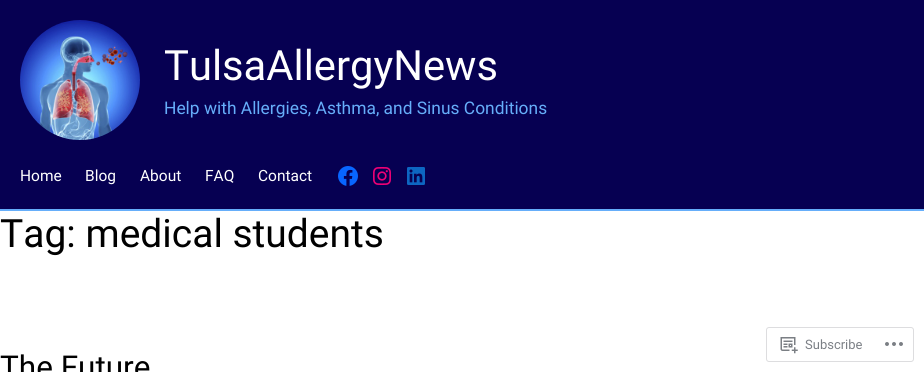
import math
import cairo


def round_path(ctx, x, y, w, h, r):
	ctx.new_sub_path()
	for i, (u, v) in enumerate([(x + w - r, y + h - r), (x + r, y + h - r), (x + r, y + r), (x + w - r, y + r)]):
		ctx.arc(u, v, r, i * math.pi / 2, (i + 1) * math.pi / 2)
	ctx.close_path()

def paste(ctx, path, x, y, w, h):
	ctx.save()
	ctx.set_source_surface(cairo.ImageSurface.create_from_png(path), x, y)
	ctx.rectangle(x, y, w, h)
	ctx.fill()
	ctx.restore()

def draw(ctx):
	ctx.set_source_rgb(1, 1, 1)
	ctx.paint()
	ctx.set_source_rgb(0.027, 0, 0.322)
	ctx.rectangle(0, 0, 924, 209)
	ctx.fill()
	ctx.set_source_rgb(0.4, 0.682, 0.98)
	ctx.rectangle(0, 209, 924, 2)
	ctx.fill()
	paste(ctx, 'media/1.png', 20, 20, 120, 120)
	ctx.select_font_face('Roboto')
	ctx.set_font_size(41.75)
	ctx.set_source_rgb(1, 1, 1)
	ctx.move_to(164, 80)
	ctx.show_text('TulsaAllergyNews')
	ctx.set_font_size(17.4)
	ctx.set_source_rgb(0.4, 0.682, 0.98)
	ctx.move_to(164, 114)
	ctx.show_text('Help with Allergies, Asthma, and Sinus Conditions')
	ctx.set_font_size(15.5)
	ctx.set_source_rgb(1, 1, 1)
	for x, y, s in [
		(20, 181, 'Home'),
		(85, 181, 'Blog'),
		(140, 181, 'About'),
		(205, 181, 'FAQ'),
		(258, 181, 'Contact'),
	]:
		ctx.move_to(x, y)
		ctx.show_text(s)
	paste(ctx, 'media/2.png', 338, 166, 20, 20)
	paste(ctx, 'media/3.png', 373, 167, 18, 18)
	paste(ctx, 'media/4.png', 407, 167, 18, 18)
	ctx.set_font_size(39)
	ctx.set_source_rgb(0, 0, 0)
	ctx.move_to(0, 247)
	ctx.show_text('Tag: medical students')
	ctx.set_font_size(31.5)
	ctx.move_to(0, 378)
	ctx.show_text('The Future')
	round_path(ctx, 766.5, 327.5, 147, 34, 2.5)
	ctx.set_source_rgb(0.867, 0.867, 0.875)
	ctx.set_line_width(1)
	ctx.stroke()
	paste(ctx, 'media/5.png', 780, 337, 18, 17)
	ctx.set_font_size(13)
	ctx.set_source_rgb(0.482, 0.498, 0.522)
	ctx.move_to(805, 349)
	ctx.show_text('Subscribe')
	paste(ctx, 'media/6.png', 885, 342, 18, 4)


surface = cairo.ImageSurface(cairo.FORMAT_RGB24, 924, 372)
ctx = cairo.Context(surface)
options = cairo.FontOptions()
options.set_hint_metrics(cairo.HINT_METRICS_OFF)
options.set_hint_style(cairo.HINT_STYLE_NONE)
ctx.set_font_options(options)
ctx.set_miter_limit(4)
draw(ctx)
surface.write_to_png('image.png')
